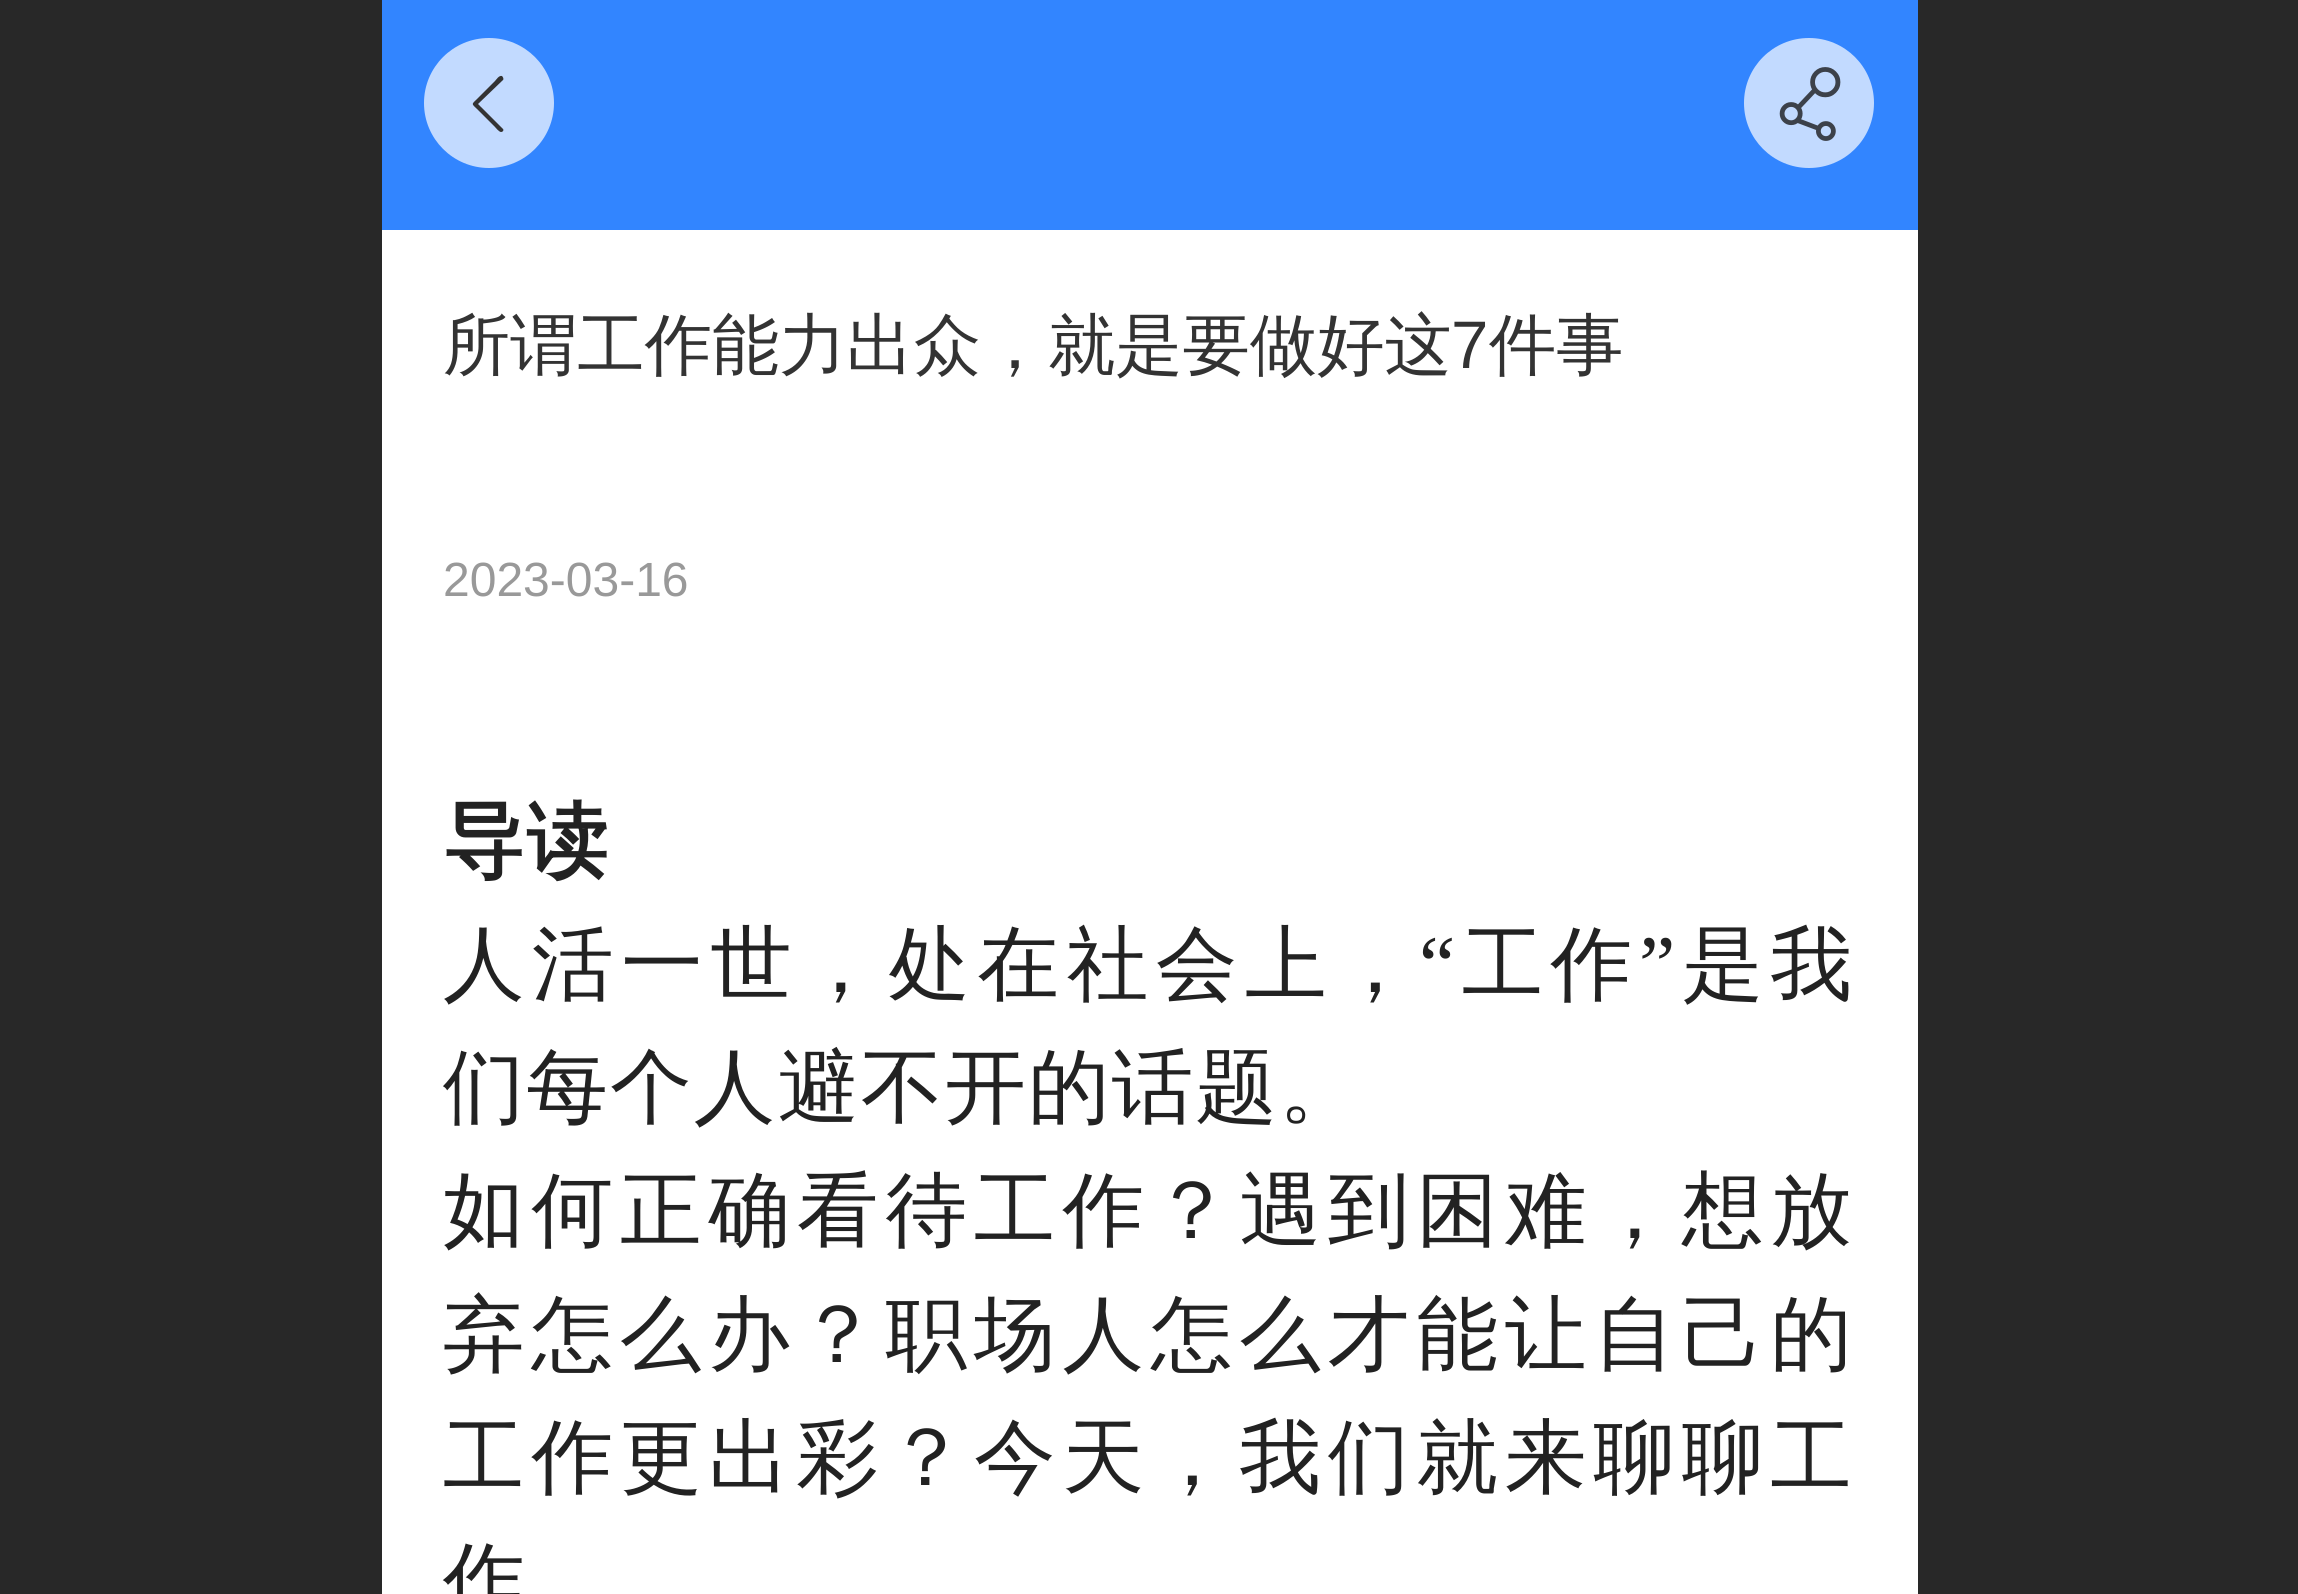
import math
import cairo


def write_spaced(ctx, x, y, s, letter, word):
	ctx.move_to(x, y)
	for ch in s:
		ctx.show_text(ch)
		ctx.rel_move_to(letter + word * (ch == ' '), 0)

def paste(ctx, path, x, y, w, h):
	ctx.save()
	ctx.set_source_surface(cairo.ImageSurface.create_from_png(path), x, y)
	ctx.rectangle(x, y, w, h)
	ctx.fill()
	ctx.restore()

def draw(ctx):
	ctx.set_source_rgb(1, 1, 1)
	ctx.paint()
	ctx.set_source_rgb(0.157, 0.157, 0.157)
	ctx.rectangle(0, 0, 382, 1594)
	ctx.fill()
	ctx.set_source_rgb(0.196, 0.522, 1)
	ctx.rectangle(382, 0, 1536, 230)
	ctx.fill()
	ctx.set_source_rgb(0.761, 0.855, 1)
	ctx.arc(489, 103, 65, 0, 2 * math.pi)
	ctx.fill()
	ctx.set_source_rgb(0.2, 0.2, 0.2)
	ctx.new_path()
	ctx.move_to(501, 132)
	ctx.curve_to(499, 132, 495, 127, 495, 127)
	ctx.line_to(478, 110)
	ctx.curve_to(471, 103, 471, 105, 478, 98)
	ctx.line_to(495, 81)
	ctx.curve_to(496, 80, 499, 75, 502, 76)
	ctx.curve_to(503, 77, 504, 79, 503, 80)
	ctx.line_to(478, 104)
	ctx.line_to(503, 129)
	ctx.curve_to(504, 130, 503, 132, 501, 132)
	ctx.close_path()
	ctx.fill()
	ctx.set_source_rgb(0.761, 0.855, 1)
	ctx.arc(1809, 103, 65, 0, 2 * math.pi)
	ctx.fill()
	paste(ctx, 'media/1.png', 1779, 67, 62, 74)
	ctx.select_font_face('WenQuanYi Zen Hei Medium')
	ctx.set_font_size(67.25)
	ctx.set_source_rgb(0.2, 0.2, 0.2)
	ctx.move_to(443, 368)
	ctx.show_text('所谓工作能力出众，就是要做好这')
	ctx.select_font_face('Liberation Sans')
	ctx.move_to(1451, 368)
	ctx.show_text('7')
	ctx.select_font_face('WenQuanYi Zen Hei Medium')
	ctx.move_to(1489, 368)
	ctx.show_text('件事')
	ctx.select_font_face('Liberation Sans')
	ctx.set_font_size(48)
	ctx.set_source_rgb(0.6, 0.6, 0.6)
	ctx.move_to(443, 596)
	ctx.show_text('2023-03-16')
	ctx.select_font_face('WenQuanYi Zen Hei', cairo.FONT_SLANT_NORMAL, cairo.FONT_WEIGHT_BOLD)
	ctx.set_font_size(81.6)
	ctx.set_source_rgb(0.133, 0.133, 0.133)
	write_spaced(ctx, 443, 869, '导读', 2, 0)
	ctx.select_font_face('WenQuanYi Zen Hei Medium')
	write_spaced(ctx, 443, 992, '人活一世，处在社会上，', 7.5, 0)
	ctx.select_font_face('Liberation Serif')
	write_spaced(ctx, 1419, 992, '“', 7, 0)
	ctx.select_font_face('WenQuanYi Zen Hei Medium')
	write_spaced(ctx, 1462, 992, '工作', 7, 0)
	ctx.select_font_face('Liberation Serif')
	write_spaced(ctx, 1639, 992, '”', 7, 0)
	ctx.select_font_face('WenQuanYi Zen Hei Medium')
	write_spaced(ctx, 1682, 992, '是我', 7, 0)
	write_spaced(ctx, 443, 1115, '们每个人避不开的话题。', 2, 0)
	for x, y, s in [
		(443, 1238, '如何正确看待工作？遇到困难，想放'),
		(443, 1362, '弃怎么办？职场人怎么才能让自己的'),
		(443, 1485, '工作更出彩？今天，我们就来聊聊工'),
	]:
		write_spaced(ctx, x, y, s, 6.9, 0)
	write_spaced(ctx, 443, 1608, '作', 2, 0)
	ctx.set_source_rgb(0.157, 0.157, 0.157)
	ctx.rectangle(1918, 0, 380, 1594)
	ctx.fill()


surface = cairo.ImageSurface(cairo.FORMAT_RGB24, 2298, 1594)
ctx = cairo.Context(surface)
options = cairo.FontOptions()
options.set_hint_metrics(cairo.HINT_METRICS_OFF)
options.set_hint_style(cairo.HINT_STYLE_NONE)
ctx.set_font_options(options)
ctx.set_miter_limit(4)
draw(ctx)
surface.write_to_png('image.png')
